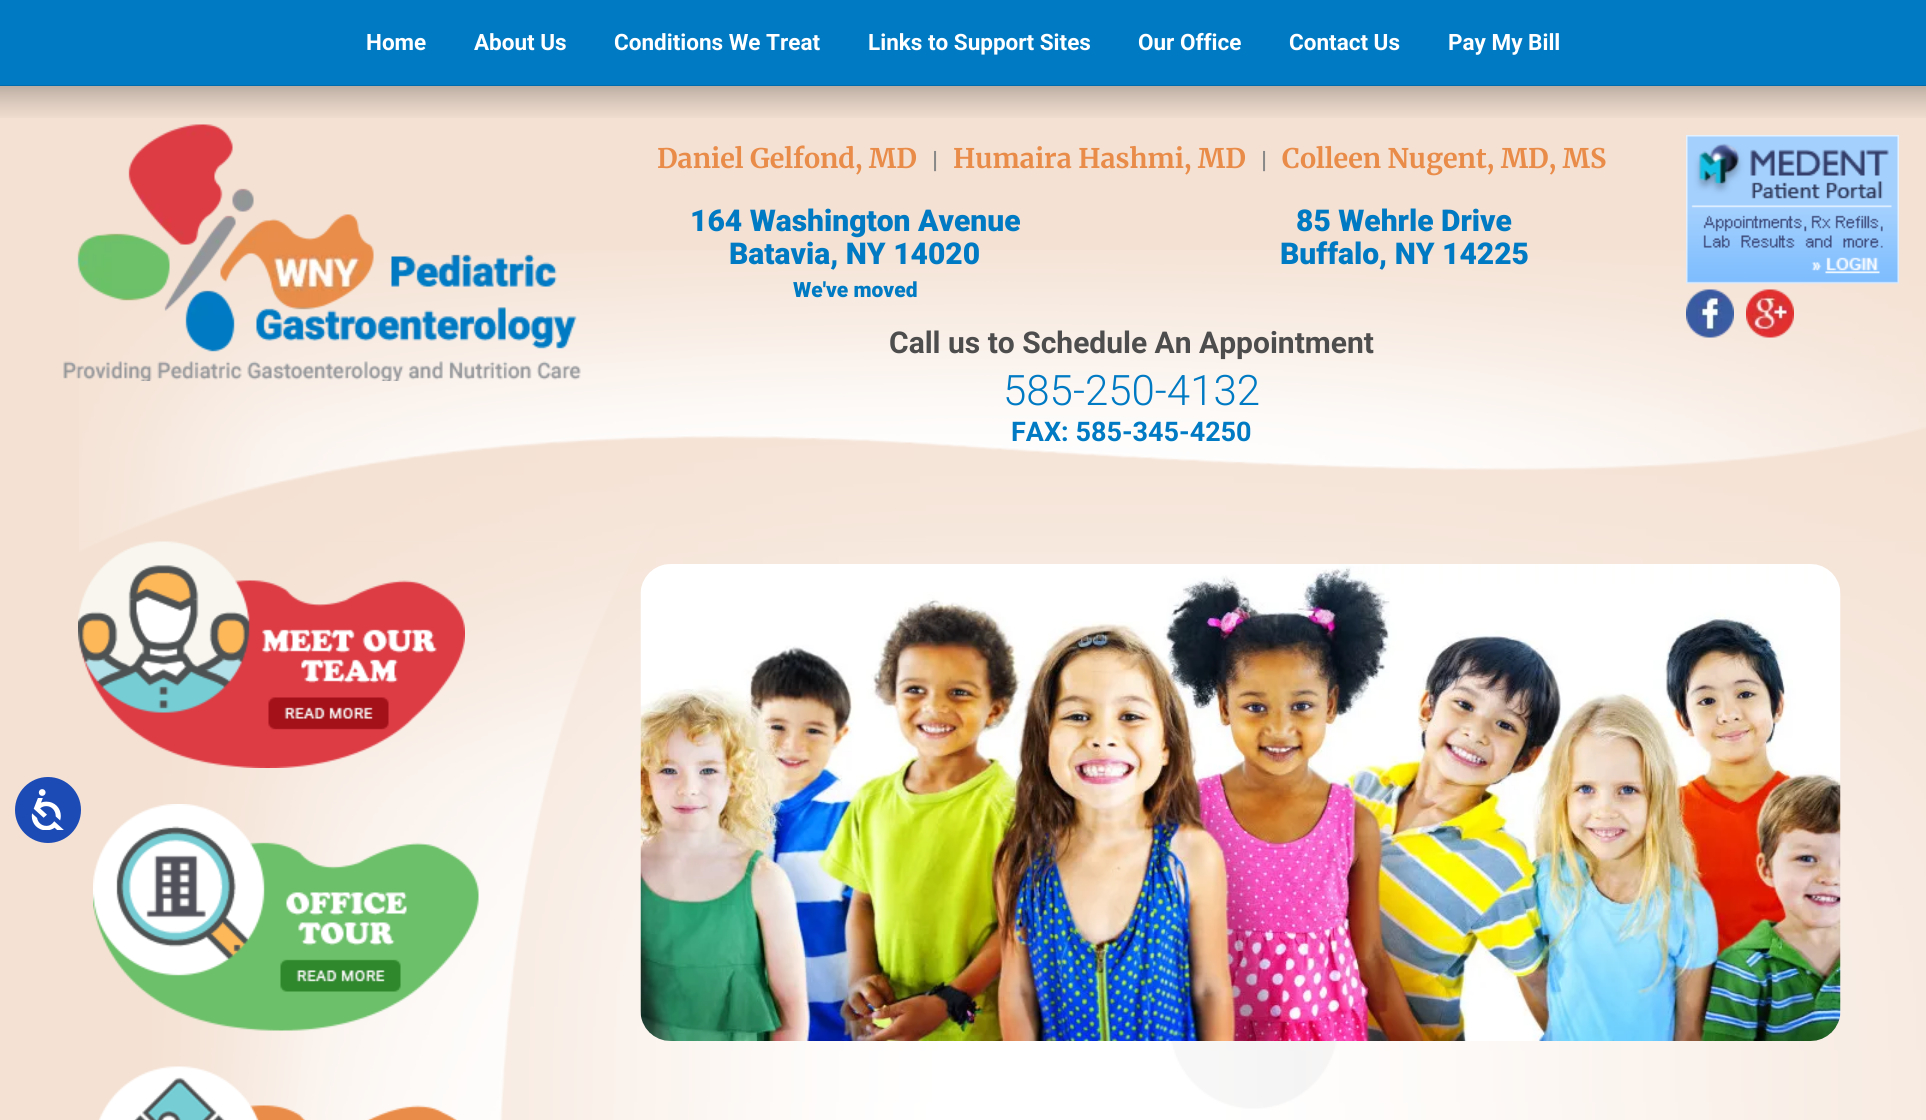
import math
import cairo


def paste(ctx, path, x, y, w, h):
	ctx.save()
	ctx.set_source_surface(cairo.ImageSurface.create_from_png(path), x, y)
	ctx.rectangle(x, y, w, h)
	ctx.fill()
	ctx.restore()

def draw(ctx):
	ctx.set_source_rgb(0.957, 0.882, 0.827)
	ctx.paint()
	paste(ctx, 'media/1.png', 79, 250, 1847, 292)
	ctx.set_source_rgb(0, 0.478, 0.765)
	ctx.rectangle(0, 0, 1926, 86)
	ctx.fill()
	ctx.select_font_face('Roboto', cairo.FONT_SLANT_NORMAL, cairo.FONT_WEIGHT_BOLD)
	ctx.set_font_size(22.5)
	ctx.set_source_rgb(1, 1, 1)
	for x, y, s in [
		(366, 50, 'Home'),
		(474, 50, 'About Us'),
		(614, 50, 'Conditions We Treat'),
		(868, 50, 'Links to Support Sites'),
		(1138, 50, 'Our Office'),
		(1289, 50, 'Contact Us'),
		(1448, 50, 'Pay My Bill'),
	]:
		ctx.move_to(x, y)
		ctx.show_text(s)
	paste(ctx, 'media/2.png', 0, 85, 1926, 33)
	paste(ctx, 'media/3.png', 63, 124, 518, 257)
	ctx.select_font_face('Merriweather', cairo.FONT_SLANT_NORMAL, cairo.FONT_WEIGHT_BOLD)
	ctx.set_font_size(27)
	ctx.set_source_rgb(0.914, 0.549, 0.29)
	ctx.move_to(657, 168)
	ctx.show_text('Daniel Gelfond, MD')
	ctx.select_font_face('Roboto', cairo.FONT_SLANT_NORMAL, cairo.FONT_WEIGHT_BOLD)
	ctx.set_font_size(24)
	ctx.set_source_rgb(0.533, 0.533, 0.533)
	ctx.move_to(932, 168)
	ctx.show_text('|')
	ctx.select_font_face('Merriweather', cairo.FONT_SLANT_NORMAL, cairo.FONT_WEIGHT_BOLD)
	ctx.set_font_size(27)
	ctx.set_source_rgb(0.914, 0.549, 0.29)
	ctx.move_to(953, 168)
	ctx.show_text('Humaira Hashmi, MD')
	ctx.select_font_face('Roboto', cairo.FONT_SLANT_NORMAL, cairo.FONT_WEIGHT_BOLD)
	ctx.set_font_size(24)
	ctx.set_source_rgb(0.533, 0.533, 0.533)
	ctx.move_to(1261, 168)
	ctx.show_text('|')
	ctx.select_font_face('Merriweather', cairo.FONT_SLANT_NORMAL, cairo.FONT_WEIGHT_BOLD)
	ctx.set_font_size(27)
	ctx.set_source_rgb(0.914, 0.549, 0.29)
	ctx.move_to(1282, 168)
	ctx.show_text('Colleen Nugent, MD, MS')
	ctx.select_font_face('Roboto Black')
	ctx.set_font_size(30)
	ctx.set_source_rgb(0, 0.478, 0.765)
	ctx.move_to(690, 231)
	ctx.show_text('164 Washington Avenue')
	ctx.move_to(729, 264)
	ctx.show_text('Batavia, NY 14020')
	ctx.set_font_size(21)
	ctx.move_to(793, 297)
	ctx.show_text('We\'ve moved')
	ctx.set_font_size(30)
	ctx.move_to(1296, 231)
	ctx.show_text('85 Wehrle Drive')
	ctx.move_to(1280, 264)
	ctx.show_text('Buffalo, NY 14225')
	ctx.select_font_face('Roboto', cairo.FONT_SLANT_NORMAL, cairo.FONT_WEIGHT_BOLD)
	ctx.set_source_rgb(0.302, 0.302, 0.302)
	ctx.move_to(889, 353)
	ctx.show_text('Call us to Schedule An Appointment')
	ctx.select_font_face('Roboto Light')
	ctx.set_font_size(42)
	ctx.set_source_rgb(0, 0.478, 0.765)
	ctx.move_to(1003, 405)
	ctx.show_text('585-250-4132')
	ctx.select_font_face('Roboto', cairo.FONT_SLANT_NORMAL, cairo.FONT_WEIGHT_BOLD)
	ctx.set_font_size(27)
	ctx.move_to(1011, 441)
	ctx.show_text('FAX: 585-345-4250')
	paste(ctx, 'media/4.png', 1686, 135, 213, 149)
	paste(ctx, 'media/5.png', 1686, 289, 48, 49)
	paste(ctx, 'media/6.png', 1746, 289, 48, 49)
	paste(ctx, 'media/8.png', 79, 541, 1847, 579)
	ctx.set_source_rgb(0.11, 0.294, 0.714)
	ctx.arc(48, 810, 33, 0, 2 * math.pi)
	ctx.fill()
	paste(ctx, 'media/7.png', 31, 789, 33, 41)
	paste(ctx, 'media/9.png', 78, 541, 387, 227)
	paste(ctx, 'media/10.png', 93, 804, 386, 227)
	paste(ctx, 'media/11.png', 99, 1066, 358, 54)
	paste(ctx, 'media/12.png', 640, 564, 1201, 477)


surface = cairo.ImageSurface(cairo.FORMAT_RGB24, 1926, 1120)
ctx = cairo.Context(surface)
options = cairo.FontOptions()
options.set_hint_metrics(cairo.HINT_METRICS_OFF)
options.set_hint_style(cairo.HINT_STYLE_NONE)
ctx.set_font_options(options)
ctx.set_miter_limit(4)
draw(ctx)
surface.write_to_png('image.png')
